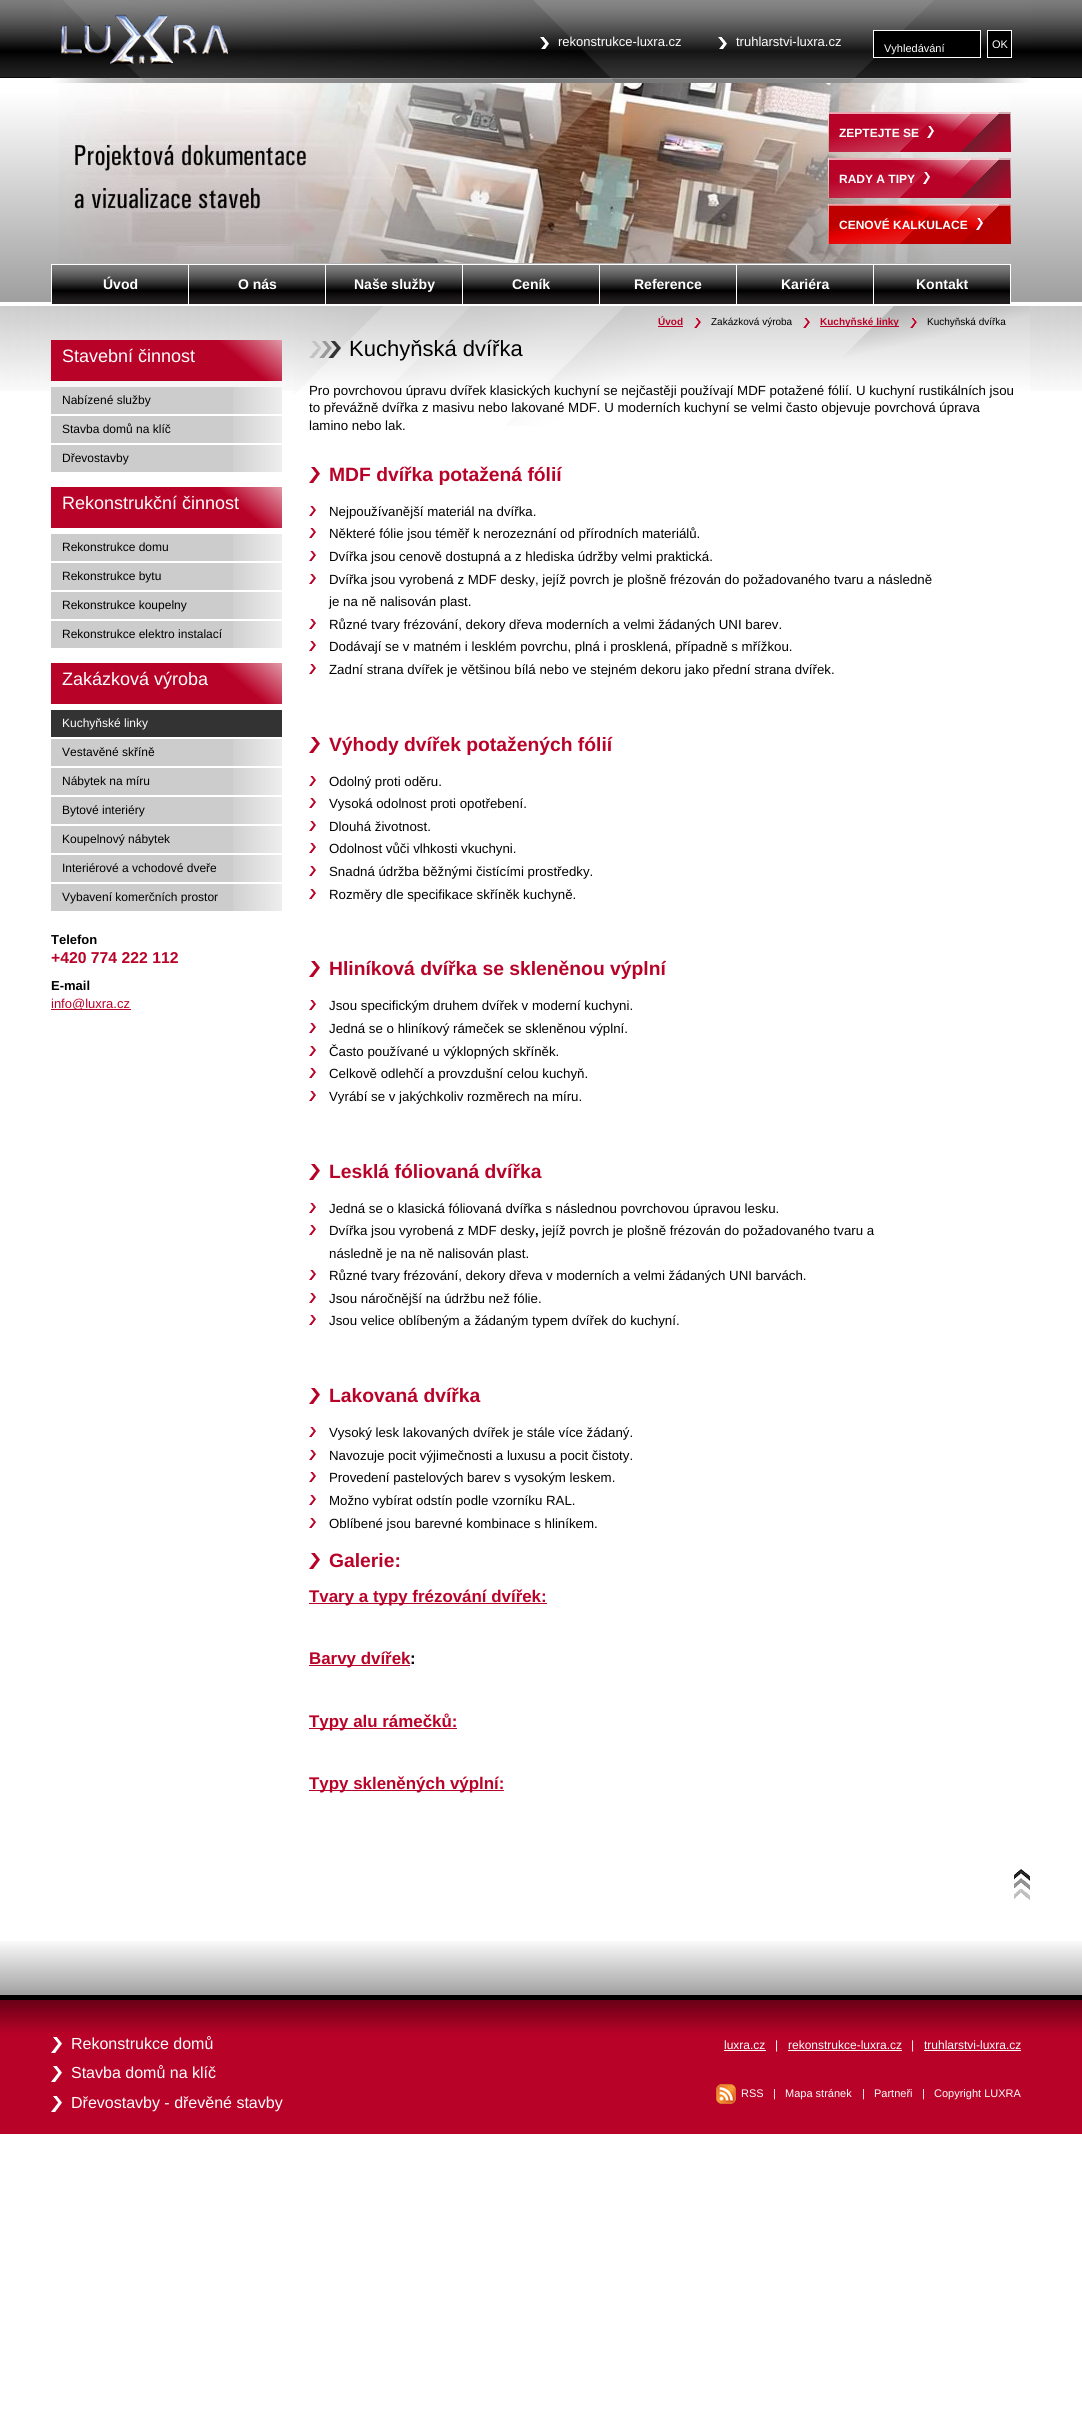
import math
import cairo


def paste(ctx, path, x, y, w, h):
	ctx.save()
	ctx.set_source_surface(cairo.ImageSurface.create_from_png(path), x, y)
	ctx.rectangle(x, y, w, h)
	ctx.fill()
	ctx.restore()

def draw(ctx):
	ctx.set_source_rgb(1, 1, 1)
	ctx.paint()
	paste(ctx, 'media/1.png', 0, 0, 1082, 302)
	paste(ctx, 'media/2.png', 51, 0, 980, 83)
	paste(ctx, 'media/3.png', 61, 14, 167, 51)
	paste(ctx, 'media/4.png', 540, 37, 9, 12)
	ctx.select_font_face('Liberation Sans')
	ctx.set_font_size(13)
	ctx.set_source_rgb(1, 1, 1)
	ctx.move_to(558, 46)
	ctx.show_text('rekonstrukce-luxra.cz')
	paste(ctx, 'media/5.png', 718, 37, 9, 12)
	ctx.move_to(736, 46)
	ctx.show_text('truhlarstvi-luxra.cz')
	ctx.set_source_rgb(0, 0, 0)
	ctx.rectangle(873.5, 30.5, 107, 27)
	ctx.fill_preserve()
	ctx.set_source_rgb(1, 1, 1)
	ctx.set_line_width(1)
	ctx.stroke()
	ctx.set_font_size(11)
	ctx.move_to(884, 52)
	ctx.show_text('Vyhledávání')
	ctx.set_source_rgb(0, 0, 0)
	ctx.rectangle(987.5, 30.5, 24, 27)
	ctx.fill_preserve()
	ctx.set_source_rgb(1, 1, 1)
	ctx.stroke()
	ctx.move_to(992, 48)
	ctx.show_text('OK')
	paste(ctx, 'media/6.png', 59, 83, 952, 180)
	paste(ctx, 'media/7.png', 828, 113, 183, 39)
	ctx.select_font_face('Liberation Sans', cairo.FONT_SLANT_NORMAL, cairo.FONT_WEIGHT_BOLD)
	ctx.set_font_size(12)
	ctx.move_to(839, 137)
	ctx.show_text('ZEPTEJTE SE')
	paste(ctx, 'media/8.png', 927, 126, 7, 12)
	paste(ctx, 'media/7.png', 828, 159, 183, 39)
	ctx.move_to(839, 183)
	ctx.show_text('RADY A TIPY')
	paste(ctx, 'media/9.png', 923, 172, 7, 12)
	paste(ctx, 'media/10.png', 828, 205, 183, 39)
	ctx.move_to(839, 229)
	ctx.show_text('CENOVÉ KALKULACE')
	paste(ctx, 'media/11.png', 976, 218, 7, 12)
	paste(ctx, 'media/12.png', 52, 265, 136, 39)
	ctx.rectangle(51, 264, 960, 1)
	ctx.rectangle(188, 264, 1, 40)
	ctx.rectangle(51, 264, 1, 40)
	ctx.fill()
	ctx.set_font_size(14)
	ctx.move_to(103, 289)
	ctx.show_text('Úvod')
	paste(ctx, 'media/12.png', 189, 265, 136, 39)
	ctx.rectangle(325, 264, 1, 40)
	ctx.fill()
	ctx.move_to(238, 289)
	ctx.show_text('O nás')
	paste(ctx, 'media/12.png', 326, 265, 136, 39)
	ctx.rectangle(462, 264, 1, 40)
	ctx.fill()
	ctx.move_to(354, 289)
	ctx.show_text('Naše služby')
	paste(ctx, 'media/12.png', 463, 265, 136, 39)
	ctx.rectangle(599, 264, 1, 40)
	ctx.fill()
	ctx.move_to(512, 289)
	ctx.show_text('Ceník')
	paste(ctx, 'media/12.png', 600, 265, 136, 39)
	ctx.rectangle(736, 264, 1, 40)
	ctx.fill()
	ctx.move_to(634, 289)
	ctx.show_text('Reference')
	paste(ctx, 'media/12.png', 737, 265, 136, 39)
	ctx.rectangle(873, 264, 1, 40)
	ctx.fill()
	ctx.move_to(781, 289)
	ctx.show_text('Kariéra')
	paste(ctx, 'media/12.png', 874, 265, 136, 39)
	ctx.rectangle(1010, 264, 1, 40)
	ctx.fill()
	ctx.move_to(916, 289)
	ctx.show_text('Kontakt')
	paste(ctx, 'media/13.png', 0, 306, 1082, 85)
	ctx.set_source_rgb(0.725, 0.008, 0.157)
	ctx.rectangle(51, 340, 168, 41)
	ctx.fill()
	paste(ctx, 'media/14.png', 219, 340, 63, 41)
	ctx.select_font_face('Liberation Sans')
	ctx.set_font_size(18)
	ctx.set_source_rgb(1, 1, 1)
	ctx.move_to(62, 362)
	ctx.show_text('Stavební činnost')
	ctx.set_source_rgb(0.8, 0.8, 0.8)
	ctx.rectangle(51, 387, 182, 27)
	ctx.fill()
	paste(ctx, 'media/15.png', 233, 387, 49, 27)
	ctx.set_font_size(12)
	ctx.set_source_rgb(0, 0, 0)
	ctx.move_to(62, 404)
	ctx.show_text('Nabízené služby')
	ctx.set_source_rgb(0.8, 0.8, 0.8)
	ctx.rectangle(51, 416, 182, 27)
	ctx.fill()
	paste(ctx, 'media/15.png', 233, 416, 49, 27)
	ctx.set_source_rgb(0, 0, 0)
	ctx.move_to(62, 433)
	ctx.show_text('Stavba domů na klíč')
	ctx.set_source_rgb(0.8, 0.8, 0.8)
	ctx.rectangle(51, 445, 182, 27)
	ctx.fill()
	paste(ctx, 'media/15.png', 233, 445, 49, 27)
	ctx.set_source_rgb(0, 0, 0)
	ctx.move_to(62, 462)
	ctx.show_text('Dřevostavby')
	ctx.set_source_rgb(0.725, 0.008, 0.157)
	ctx.rectangle(51, 487, 168, 41)
	ctx.fill()
	paste(ctx, 'media/14.png', 219, 487, 63, 41)
	ctx.set_font_size(18)
	ctx.set_source_rgb(1, 1, 1)
	ctx.move_to(62, 509)
	ctx.show_text('Rekonstrukční činnost')
	ctx.set_source_rgb(0.8, 0.8, 0.8)
	ctx.rectangle(51, 534, 182, 27)
	ctx.fill()
	paste(ctx, 'media/15.png', 233, 534, 49, 27)
	ctx.set_font_size(12)
	ctx.set_source_rgb(0, 0, 0)
	ctx.move_to(62, 551)
	ctx.show_text('Rekonstrukce domu')
	ctx.set_source_rgb(0.8, 0.8, 0.8)
	ctx.rectangle(51, 563, 182, 27)
	ctx.fill()
	paste(ctx, 'media/15.png', 233, 563, 49, 27)
	ctx.set_source_rgb(0, 0, 0)
	ctx.move_to(62, 580)
	ctx.show_text('Rekonstrukce bytu')
	ctx.set_source_rgb(0.8, 0.8, 0.8)
	ctx.rectangle(51, 592, 182, 27)
	ctx.fill()
	paste(ctx, 'media/15.png', 233, 592, 49, 27)
	ctx.set_source_rgb(0, 0, 0)
	ctx.move_to(62, 609)
	ctx.show_text('Rekonstrukce koupelny')
	ctx.set_source_rgb(0.8, 0.8, 0.8)
	ctx.rectangle(51, 621, 182, 27)
	ctx.fill()
	paste(ctx, 'media/15.png', 233, 621, 49, 27)
	ctx.set_source_rgb(0, 0, 0)
	ctx.move_to(62, 638)
	ctx.show_text('Rekonstrukce elektro instalací')
	ctx.set_source_rgb(0.725, 0.008, 0.157)
	ctx.rectangle(51, 663, 168, 41)
	ctx.fill()
	paste(ctx, 'media/14.png', 219, 663, 63, 41)
	ctx.set_font_size(18)
	ctx.set_source_rgb(1, 1, 1)
	ctx.move_to(62, 685)
	ctx.show_text('Zakázková výroba')
	ctx.set_source_rgb(0.2, 0.2, 0.2)
	ctx.rectangle(51, 710, 231, 27)
	ctx.fill()
	ctx.set_font_size(12)
	ctx.set_source_rgb(1, 1, 1)
	ctx.move_to(62, 727)
	ctx.show_text('Kuchyňské linky')
	ctx.set_source_rgb(0.8, 0.8, 0.8)
	ctx.rectangle(51, 739, 182, 27)
	ctx.fill()
	paste(ctx, 'media/15.png', 233, 739, 49, 27)
	ctx.set_source_rgb(0, 0, 0)
	ctx.move_to(62, 756)
	ctx.show_text('Vestavěné skříně')
	ctx.set_source_rgb(0.8, 0.8, 0.8)
	ctx.rectangle(51, 768, 182, 27)
	ctx.fill()
	paste(ctx, 'media/15.png', 233, 768, 49, 27)
	ctx.set_source_rgb(0, 0, 0)
	ctx.move_to(62, 785)
	ctx.show_text('Nábytek na míru')
	ctx.set_source_rgb(0.8, 0.8, 0.8)
	ctx.rectangle(51, 797, 182, 27)
	ctx.fill()
	paste(ctx, 'media/15.png', 233, 797, 49, 27)
	ctx.set_source_rgb(0, 0, 0)
	ctx.move_to(62, 814)
	ctx.show_text('Bytové interiéry')
	ctx.set_source_rgb(0.8, 0.8, 0.8)
	ctx.rectangle(51, 826, 182, 27)
	ctx.fill()
	paste(ctx, 'media/15.png', 233, 826, 49, 27)
	ctx.set_source_rgb(0, 0, 0)
	ctx.move_to(62, 843)
	ctx.show_text('Koupelnový nábytek')
	ctx.set_source_rgb(0.8, 0.8, 0.8)
	ctx.rectangle(51, 855, 182, 27)
	ctx.fill()
	paste(ctx, 'media/15.png', 233, 855, 49, 27)
	ctx.set_source_rgb(0, 0, 0)
	ctx.move_to(62, 872)
	ctx.show_text('Interiérové a vchodové dveře')
	ctx.set_source_rgb(0.8, 0.8, 0.8)
	ctx.rectangle(51, 884, 182, 27)
	ctx.fill()
	paste(ctx, 'media/15.png', 233, 884, 49, 27)
	ctx.set_source_rgb(0, 0, 0)
	ctx.move_to(62, 901)
	ctx.show_text('Vybavení komerčních prostor')
	ctx.select_font_face('Liberation Sans', cairo.FONT_SLANT_NORMAL, cairo.FONT_WEIGHT_BOLD)
	ctx.set_font_size(13)
	ctx.move_to(51, 944)
	ctx.show_text('Telefon')
	ctx.set_font_size(15.75)
	ctx.set_source_rgb(0.725, 0.008, 0.157)
	ctx.move_to(51, 963)
	ctx.show_text('+420 774 222 112')
	ctx.set_font_size(13)
	ctx.set_source_rgb(0, 0, 0)
	ctx.move_to(51, 990)
	ctx.show_text('E-mail')
	ctx.set_source_rgb(0.725, 0.008, 0.157)
	ctx.rectangle(51, 1009, 80, 1)
	ctx.fill()
	ctx.select_font_face('Liberation Sans')
	ctx.move_to(51, 1008)
	ctx.show_text('info@luxra.cz')
	paste(ctx, 'media/16.png', 293, 306, 737, 120)
	ctx.select_font_face('Liberation Sans', cairo.FONT_SLANT_NORMAL, cairo.FONT_WEIGHT_BOLD)
	ctx.set_font_size(10)
	ctx.move_to(658, 325)
	ctx.show_text('Úvod')
	ctx.rectangle(658, 326, 25, 1)
	ctx.fill()
	paste(ctx, 'media/17.png', 694, 318, 7, 10)
	ctx.select_font_face('Liberation Sans')
	ctx.set_source_rgb(0, 0, 0)
	ctx.move_to(711, 325)
	ctx.show_text('Zakázková výroba')
	paste(ctx, 'media/18.png', 803, 318, 7, 10)
	ctx.set_source_rgb(0.725, 0.008, 0.157)
	ctx.rectangle(820, 326, 79, 1)
	ctx.fill()
	ctx.select_font_face('Liberation Sans', cairo.FONT_SLANT_NORMAL, cairo.FONT_WEIGHT_BOLD)
	ctx.move_to(820, 325)
	ctx.show_text('Kuchyňské linky')
	paste(ctx, 'media/19.png', 910, 318, 7, 10)
	ctx.select_font_face('Liberation Sans')
	ctx.set_source_rgb(0, 0, 0)
	ctx.move_to(927, 325)
	ctx.show_text('Kuchyňská dvířka')
	paste(ctx, 'media/20.png', 309, 341, 32, 17)
	ctx.set_font_size(22)
	ctx.move_to(349, 356)
	ctx.show_text('Kuchyňská dvířka')
	ctx.set_font_size(13.28)
	for x, y, s in [
		(309, 395, 'Pro povrchovou úpravu dvířek klasických kuchyní se nejčastěji používají MDF potažené fólií. U kuchyní rustikálních jsou'),
		(309, 412, 'to převážně dvířka z masivu nebo lakované MDF. U moderních kuchyní se velmi často objevuje povrchová úprava'),
		(309, 430, 'lamino nebo lak.'),
	]:
		ctx.move_to(x, y)
		ctx.show_text(s)
	paste(ctx, 'media/21.png', 309, 467, 11, 16)
	ctx.select_font_face('Liberation Sans', cairo.FONT_SLANT_NORMAL, cairo.FONT_WEIGHT_BOLD)
	ctx.set_font_size(19.3)
	ctx.set_source_rgb(0.725, 0.008, 0.157)
	ctx.move_to(329, 481)
	ctx.show_text('MDF dvířka potažená fólií')
	paste(ctx, 'media/22.png', 309, 506, 7, 10)
	ctx.select_font_face('Liberation Sans')
	ctx.set_font_size(13.28)
	ctx.set_source_rgb(0, 0, 0)
	ctx.move_to(329, 516)
	ctx.show_text('Nejpoužívanější materiál na dvířka.')
	paste(ctx, 'media/22.png', 309, 528, 7, 10)
	ctx.move_to(329, 538)
	ctx.show_text('Některé fólie jsou téměř k nerozeznání od přírodních materiálů.')
	paste(ctx, 'media/22.png', 309, 551, 7, 10)
	ctx.move_to(329, 561)
	ctx.show_text('Dvířka jsou cenově dostupná a z hlediska údržby velmi praktická.')
	paste(ctx, 'media/22.png', 309, 574, 7, 10)
	ctx.move_to(329, 584)
	ctx.show_text('Dvířka jsou vyrobená z MDF desky, jejíž povrch je plošně frézován do požadovaného tvaru a následně')
	ctx.move_to(329, 606)
	ctx.show_text('je na ně nalisován plast.')
	paste(ctx, 'media/22.png', 309, 619, 7, 10)
	ctx.move_to(329, 629)
	ctx.show_text('Různé tvary frézování, dekory dřeva moderních a velmi žádaných UNI barev.')
	paste(ctx, 'media/22.png', 309, 641, 7, 10)
	ctx.move_to(329, 651)
	ctx.show_text('Dodávají se v matném i lesklém povrchu, plná i prosklená, případně s mřížkou.')
	paste(ctx, 'media/22.png', 309, 664, 7, 10)
	ctx.move_to(329, 674)
	ctx.show_text('Zadní strana dvířek je většinou bílá nebo ve stejném dekoru jako přední strana dvířek.')
	paste(ctx, 'media/21.png', 309, 737, 11, 16)
	ctx.select_font_face('Liberation Sans', cairo.FONT_SLANT_NORMAL, cairo.FONT_WEIGHT_BOLD)
	ctx.set_font_size(19.3)
	ctx.set_source_rgb(0.725, 0.008, 0.157)
	ctx.move_to(329, 751)
	ctx.show_text('Výhody dvířek potažených fólií')
	paste(ctx, 'media/22.png', 309, 776, 7, 10)
	ctx.select_font_face('Liberation Sans')
	ctx.set_font_size(13.28)
	ctx.set_source_rgb(0, 0, 0)
	ctx.move_to(329, 786)
	ctx.show_text('Odolný proti oděru.')
	paste(ctx, 'media/22.png', 309, 798, 7, 10)
	ctx.move_to(329, 808)
	ctx.show_text('Vysoká odolnost proti opotřebení.')
	paste(ctx, 'media/22.png', 309, 821, 7, 10)
	ctx.move_to(329, 831)
	ctx.show_text('Dlouhá životnost.')
	paste(ctx, 'media/22.png', 309, 843, 7, 10)
	ctx.move_to(329, 853)
	ctx.show_text('Odolnost vůči vlhkosti vkuchyni.')
	paste(ctx, 'media/22.png', 309, 866, 7, 10)
	ctx.move_to(329, 876)
	ctx.show_text('Snadná údržba běžnými čistícími prostředky.')
	paste(ctx, 'media/22.png', 309, 889, 7, 10)
	ctx.move_to(329, 899)
	ctx.show_text('Rozměry dle specifikace skříněk kuchyně.')
	paste(ctx, 'media/21.png', 309, 961, 11, 16)
	ctx.select_font_face('Liberation Sans', cairo.FONT_SLANT_NORMAL, cairo.FONT_WEIGHT_BOLD)
	ctx.set_font_size(19.3)
	ctx.set_source_rgb(0.725, 0.008, 0.157)
	ctx.move_to(329, 975)
	ctx.show_text('Hliníková dvířka se skleněnou výplní')
	paste(ctx, 'media/22.png', 309, 1000, 7, 10)
	ctx.select_font_face('Liberation Sans')
	ctx.set_font_size(13.28)
	ctx.set_source_rgb(0, 0, 0)
	ctx.move_to(329, 1010)
	ctx.show_text('Jsou specifickým druhem dvířek v moderní kuchyni.')
	paste(ctx, 'media/22.png', 309, 1023, 7, 10)
	ctx.move_to(329, 1033)
	ctx.show_text('Jedná se o hliníkový rámeček se skleněnou výplní.')
	paste(ctx, 'media/22.png', 309, 1046, 7, 10)
	ctx.move_to(329, 1056)
	ctx.show_text('Často používané u výklopných skříněk.')
	paste(ctx, 'media/22.png', 309, 1068, 7, 10)
	ctx.move_to(329, 1078)
	ctx.show_text('Celkově odlehčí a provzdušní celou kuchyň.')
	paste(ctx, 'media/22.png', 309, 1091, 7, 10)
	ctx.move_to(329, 1101)
	ctx.show_text('Vyrábí se v jakýchkoliv rozměrech na míru.')
	paste(ctx, 'media/21.png', 309, 1164, 11, 16)
	ctx.select_font_face('Liberation Sans', cairo.FONT_SLANT_NORMAL, cairo.FONT_WEIGHT_BOLD)
	ctx.set_font_size(19.3)
	ctx.set_source_rgb(0.725, 0.008, 0.157)
	ctx.move_to(329, 1178)
	ctx.show_text('Lesklá fóliovaná dvířka')
	paste(ctx, 'media/22.png', 309, 1203, 7, 10)
	ctx.select_font_face('Liberation Sans')
	ctx.set_font_size(13.28)
	ctx.set_source_rgb(0, 0, 0)
	ctx.move_to(329, 1213)
	ctx.show_text('Jedná se o klasická fóliovaná dvířka s následnou povrchovou úpravou lesku.')
	paste(ctx, 'media/22.png', 309, 1225, 7, 10)
	ctx.move_to(329, 1235)
	ctx.show_text('Dvířka jsou vyrobená z MDF desky')
	ctx.select_font_face('Liberation Sans', cairo.FONT_SLANT_NORMAL, cairo.FONT_WEIGHT_BOLD)
	ctx.move_to(535, 1235)
	ctx.show_text(',')
	ctx.select_font_face('Liberation Sans')
	ctx.move_to(542, 1235)
	ctx.show_text('jejíž povrch je plošně frézován do požadovaného tvaru a')
	ctx.move_to(329, 1258)
	ctx.show_text('následně je na ně nalisován plast.')
	paste(ctx, 'media/22.png', 309, 1270, 7, 10)
	ctx.move_to(329, 1280)
	ctx.show_text('Různé tvary frézování, dekory dřeva v moderních a velmi žádaných UNI barvách.')
	paste(ctx, 'media/22.png', 309, 1293, 7, 10)
	ctx.move_to(329, 1303)
	ctx.show_text('Jsou náročnější na údržbu než fólie.')
	paste(ctx, 'media/22.png', 309, 1315, 7, 10)
	ctx.move_to(329, 1325)
	ctx.show_text('Jsou velice oblíbeným a žádaným typem dvířek do kuchyní.')
	paste(ctx, 'media/21.png', 309, 1388, 11, 16)
	ctx.select_font_face('Liberation Sans', cairo.FONT_SLANT_NORMAL, cairo.FONT_WEIGHT_BOLD)
	ctx.set_font_size(19.3)
	ctx.set_source_rgb(0.725, 0.008, 0.157)
	ctx.move_to(329, 1402)
	ctx.show_text('Lakovaná dvířka')
	paste(ctx, 'media/22.png', 309, 1427, 7, 10)
	ctx.select_font_face('Liberation Sans')
	ctx.set_font_size(13.28)
	ctx.set_source_rgb(0, 0, 0)
	ctx.move_to(329, 1437)
	ctx.show_text('Vysoký lesk lakovaných dvířek je stále více žádaný.')
	paste(ctx, 'media/22.png', 309, 1450, 7, 10)
	ctx.move_to(329, 1460)
	ctx.show_text('Navozuje pocit výjimečnosti a luxusu a pocit čistoty.')
	paste(ctx, 'media/22.png', 309, 1472, 7, 10)
	ctx.move_to(329, 1482)
	ctx.show_text('Provedení pastelových barev s vysokým leskem.')
	paste(ctx, 'media/22.png', 309, 1495, 7, 10)
	ctx.move_to(329, 1505)
	ctx.show_text('Možno vybírat odstín podle vzorníku RAL.')
	paste(ctx, 'media/22.png', 309, 1518, 7, 10)
	ctx.move_to(329, 1528)
	ctx.show_text('Oblíbené jsou barevné kombinace s hliníkem.')
	paste(ctx, 'media/21.png', 309, 1553, 11, 16)
	ctx.select_font_face('Liberation Sans', cairo.FONT_SLANT_NORMAL, cairo.FONT_WEIGHT_BOLD)
	ctx.set_font_size(19.3)
	ctx.set_source_rgb(0.725, 0.008, 0.157)
	ctx.move_to(329, 1567)
	ctx.show_text('Galerie:')
	ctx.rectangle(309, 1603, 238, 1)
	ctx.fill()
	ctx.set_font_size(16.9)
	ctx.move_to(309, 1602)
	ctx.show_text('Tvary a typy frézování dvířek:')
	ctx.rectangle(309, 1665, 101, 1)
	ctx.fill()
	ctx.move_to(309, 1664)
	ctx.show_text('Barvy dvířek')
	ctx.set_source_rgb(0, 0, 0)
	ctx.move_to(410, 1664)
	ctx.show_text(':')
	ctx.set_source_rgb(0.725, 0.008, 0.157)
	ctx.rectangle(309, 1728, 148, 1)
	ctx.fill()
	ctx.move_to(309, 1727)
	ctx.show_text('Typy alu rámečků:')
	ctx.rectangle(309, 1790, 195, 1)
	ctx.fill()
	ctx.move_to(309, 1789)
	ctx.show_text('Typy skleněných výplní:')
	paste(ctx, 'media/23.png', 1014, 1869, 16, 31)
	paste(ctx, 'media/24.png', 0, 1941, 1082, 193)
	paste(ctx, 'media/25.png', 51, 2037, 11, 16)
	ctx.select_font_face('Liberation Sans')
	ctx.set_font_size(16)
	ctx.set_source_rgb(1, 1, 1)
	ctx.move_to(71, 2049)
	ctx.show_text('Rekonstrukce domů')
	paste(ctx, 'media/25.png', 51, 2066, 11, 16)
	ctx.move_to(71, 2078)
	ctx.show_text('Stavba domů na klíč')
	paste(ctx, 'media/25.png', 51, 2096, 11, 16)
	ctx.move_to(71, 2108)
	ctx.show_text('Dřevostavby - dřevěné stavby')
	ctx.set_font_size(12)
	ctx.move_to(724, 2049)
	ctx.show_text('luxra.cz')
	ctx.rectangle(724, 2050, 42, 1)
	ctx.fill()
	ctx.move_to(775, 2049)
	ctx.show_text('|')
	ctx.move_to(788, 2049)
	ctx.show_text('rekonstrukce-luxra.cz')
	ctx.rectangle(788, 2050, 114, 1)
	ctx.fill()
	ctx.move_to(911, 2049)
	ctx.show_text('|')
	ctx.move_to(924, 2049)
	ctx.show_text('truhlarstvi-luxra.cz')
	ctx.rectangle(924, 2050, 97, 1)
	ctx.fill()
	paste(ctx, 'media/26.png', 716, 2084, 20, 20)
	ctx.set_font_size(11)
	for x, y, s in [
		(741, 2097, 'RSS'),
		(773, 2097, '|'),
		(785, 2097, 'Mapa stránek'),
		(862, 2097, '|'),
		(874, 2097, 'Partneři'),
		(922, 2097, '|'),
		(934, 2097, 'Copyright LUXRA'),
	]:
		ctx.move_to(x, y)
		ctx.show_text(s)


surface = cairo.ImageSurface(cairo.FORMAT_RGB24, 1082, 2410)
ctx = cairo.Context(surface)
options = cairo.FontOptions()
options.set_hint_metrics(cairo.HINT_METRICS_OFF)
options.set_hint_style(cairo.HINT_STYLE_NONE)
ctx.set_font_options(options)
ctx.set_miter_limit(4)
draw(ctx)
surface.write_to_png('image.png')
